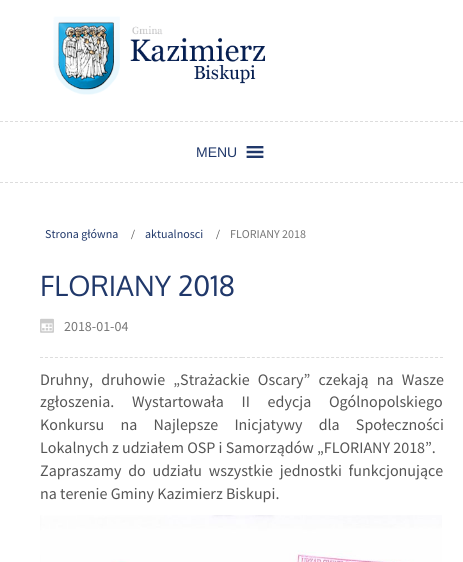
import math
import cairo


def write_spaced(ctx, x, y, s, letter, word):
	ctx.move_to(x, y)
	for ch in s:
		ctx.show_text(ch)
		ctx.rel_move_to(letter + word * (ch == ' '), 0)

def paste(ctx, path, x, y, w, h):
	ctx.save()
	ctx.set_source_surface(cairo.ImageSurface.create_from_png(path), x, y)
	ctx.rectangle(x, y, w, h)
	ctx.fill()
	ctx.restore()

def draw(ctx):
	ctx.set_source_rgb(1, 1, 1)
	ctx.paint()
	ctx.new_path()
	ctx.move_to(0, 182.5)
	ctx.line_to(463, 182.5)
	ctx.set_source_rgb(0.867, 0.867, 0.867)
	ctx.set_line_width(1)
	ctx.set_dash([3, 2])
	ctx.stroke()
	ctx.new_path()
	ctx.move_to(0, 121.5)
	ctx.line_to(463, 121.5)
	ctx.stroke()
	paste(ctx, 'media/1.png', 53, 16, 212, 79)
	ctx.select_font_face('Liberation Sans')
	ctx.set_font_size(14)
	ctx.set_source_rgb(0.125, 0.22, 0.416)
	ctx.move_to(196, 157)
	ctx.show_text('MENU')
	paste(ctx, 'media/2.png', 246, 146, 18, 12)
	ctx.select_font_face('Source Sans Pro')
	ctx.set_font_size(12)
	ctx.move_to(45, 238)
	ctx.show_text('Strona główna')
	ctx.select_font_face('Liberation Serif')
	ctx.set_font_size(14)
	ctx.set_source_rgb(0.333, 0.333, 0.333)
	ctx.move_to(131, 239)
	ctx.show_text('/')
	ctx.select_font_face('Source Sans Pro')
	ctx.set_font_size(12)
	ctx.set_source_rgb(0.125, 0.22, 0.416)
	ctx.move_to(145, 238)
	ctx.show_text('aktualnosci')
	ctx.select_font_face('Liberation Serif')
	ctx.set_font_size(14)
	ctx.set_source_rgb(0.333, 0.333, 0.333)
	ctx.move_to(216, 239)
	ctx.show_text('/')
	ctx.select_font_face('Source Sans Pro')
	ctx.set_font_size(12)
	ctx.set_source_rgb(0.467, 0.467, 0.467)
	ctx.move_to(230, 238)
	ctx.show_text('FLORIANY 2018')
	ctx.select_font_face('Oxygen')
	ctx.set_font_size(28)
	ctx.set_source_rgb(0.125, 0.22, 0.416)
	ctx.move_to(40, 296)
	ctx.show_text('FLORIANY 2018')
	paste(ctx, 'media/3.png', 40, 318, 14, 15)
	ctx.select_font_face('Source Sans Pro')
	ctx.set_font_size(14)
	ctx.set_source_rgb(0.467, 0.467, 0.467)
	ctx.move_to(64, 331)
	ctx.show_text('2018-01-04')
	ctx.new_path()
	ctx.move_to(40, 357.5)
	ctx.line_to(242, 357.5)
	ctx.set_source_rgb(0.867, 0.867, 0.867)
	ctx.set_dash([3, 1.98])
	ctx.stroke()
	ctx.new_path()
	ctx.move_to(242, 357.5)
	ctx.line_to(443, 357.5)
	ctx.set_dash([3, 1.95])
	ctx.stroke()
	ctx.set_font_size(16)
	ctx.set_source_rgb(0.333, 0.333, 0.333)
	write_spaced(ctx, 40, 385, 'Druhny, druhowie „Strażackie Oscary” czekają na Wasze', 0, 5)
	write_spaced(ctx, 40, 407, 'zgłoszenia. Wystartowała II edycja Ogólnopolskiego', 0, 14.5)
	write_spaced(ctx, 40, 430, 'Konkursu na Najlepsze Inicjatywy dla Społeczności', 0, 13)
	ctx.move_to(40, 453)
	ctx.show_text('Lokalnych z udziałem OSP i Samorządów „FLORIANY 2018”.')
	write_spaced(ctx, 40, 476, 'Zapraszamy do udziału wszystkie jednostki funkcjonujące', 0, 3.5)
	ctx.move_to(40, 499)
	ctx.show_text('na terenie Gminy Kazimierz Biskupi.')
	paste(ctx, 'media/4.png', 40, 515, 402, 47)


surface = cairo.ImageSurface(cairo.FORMAT_RGB24, 463, 562)
ctx = cairo.Context(surface)
options = cairo.FontOptions()
options.set_hint_metrics(cairo.HINT_METRICS_OFF)
options.set_hint_style(cairo.HINT_STYLE_NONE)
ctx.set_font_options(options)
ctx.set_miter_limit(4)
draw(ctx)
surface.write_to_png('image.png')
